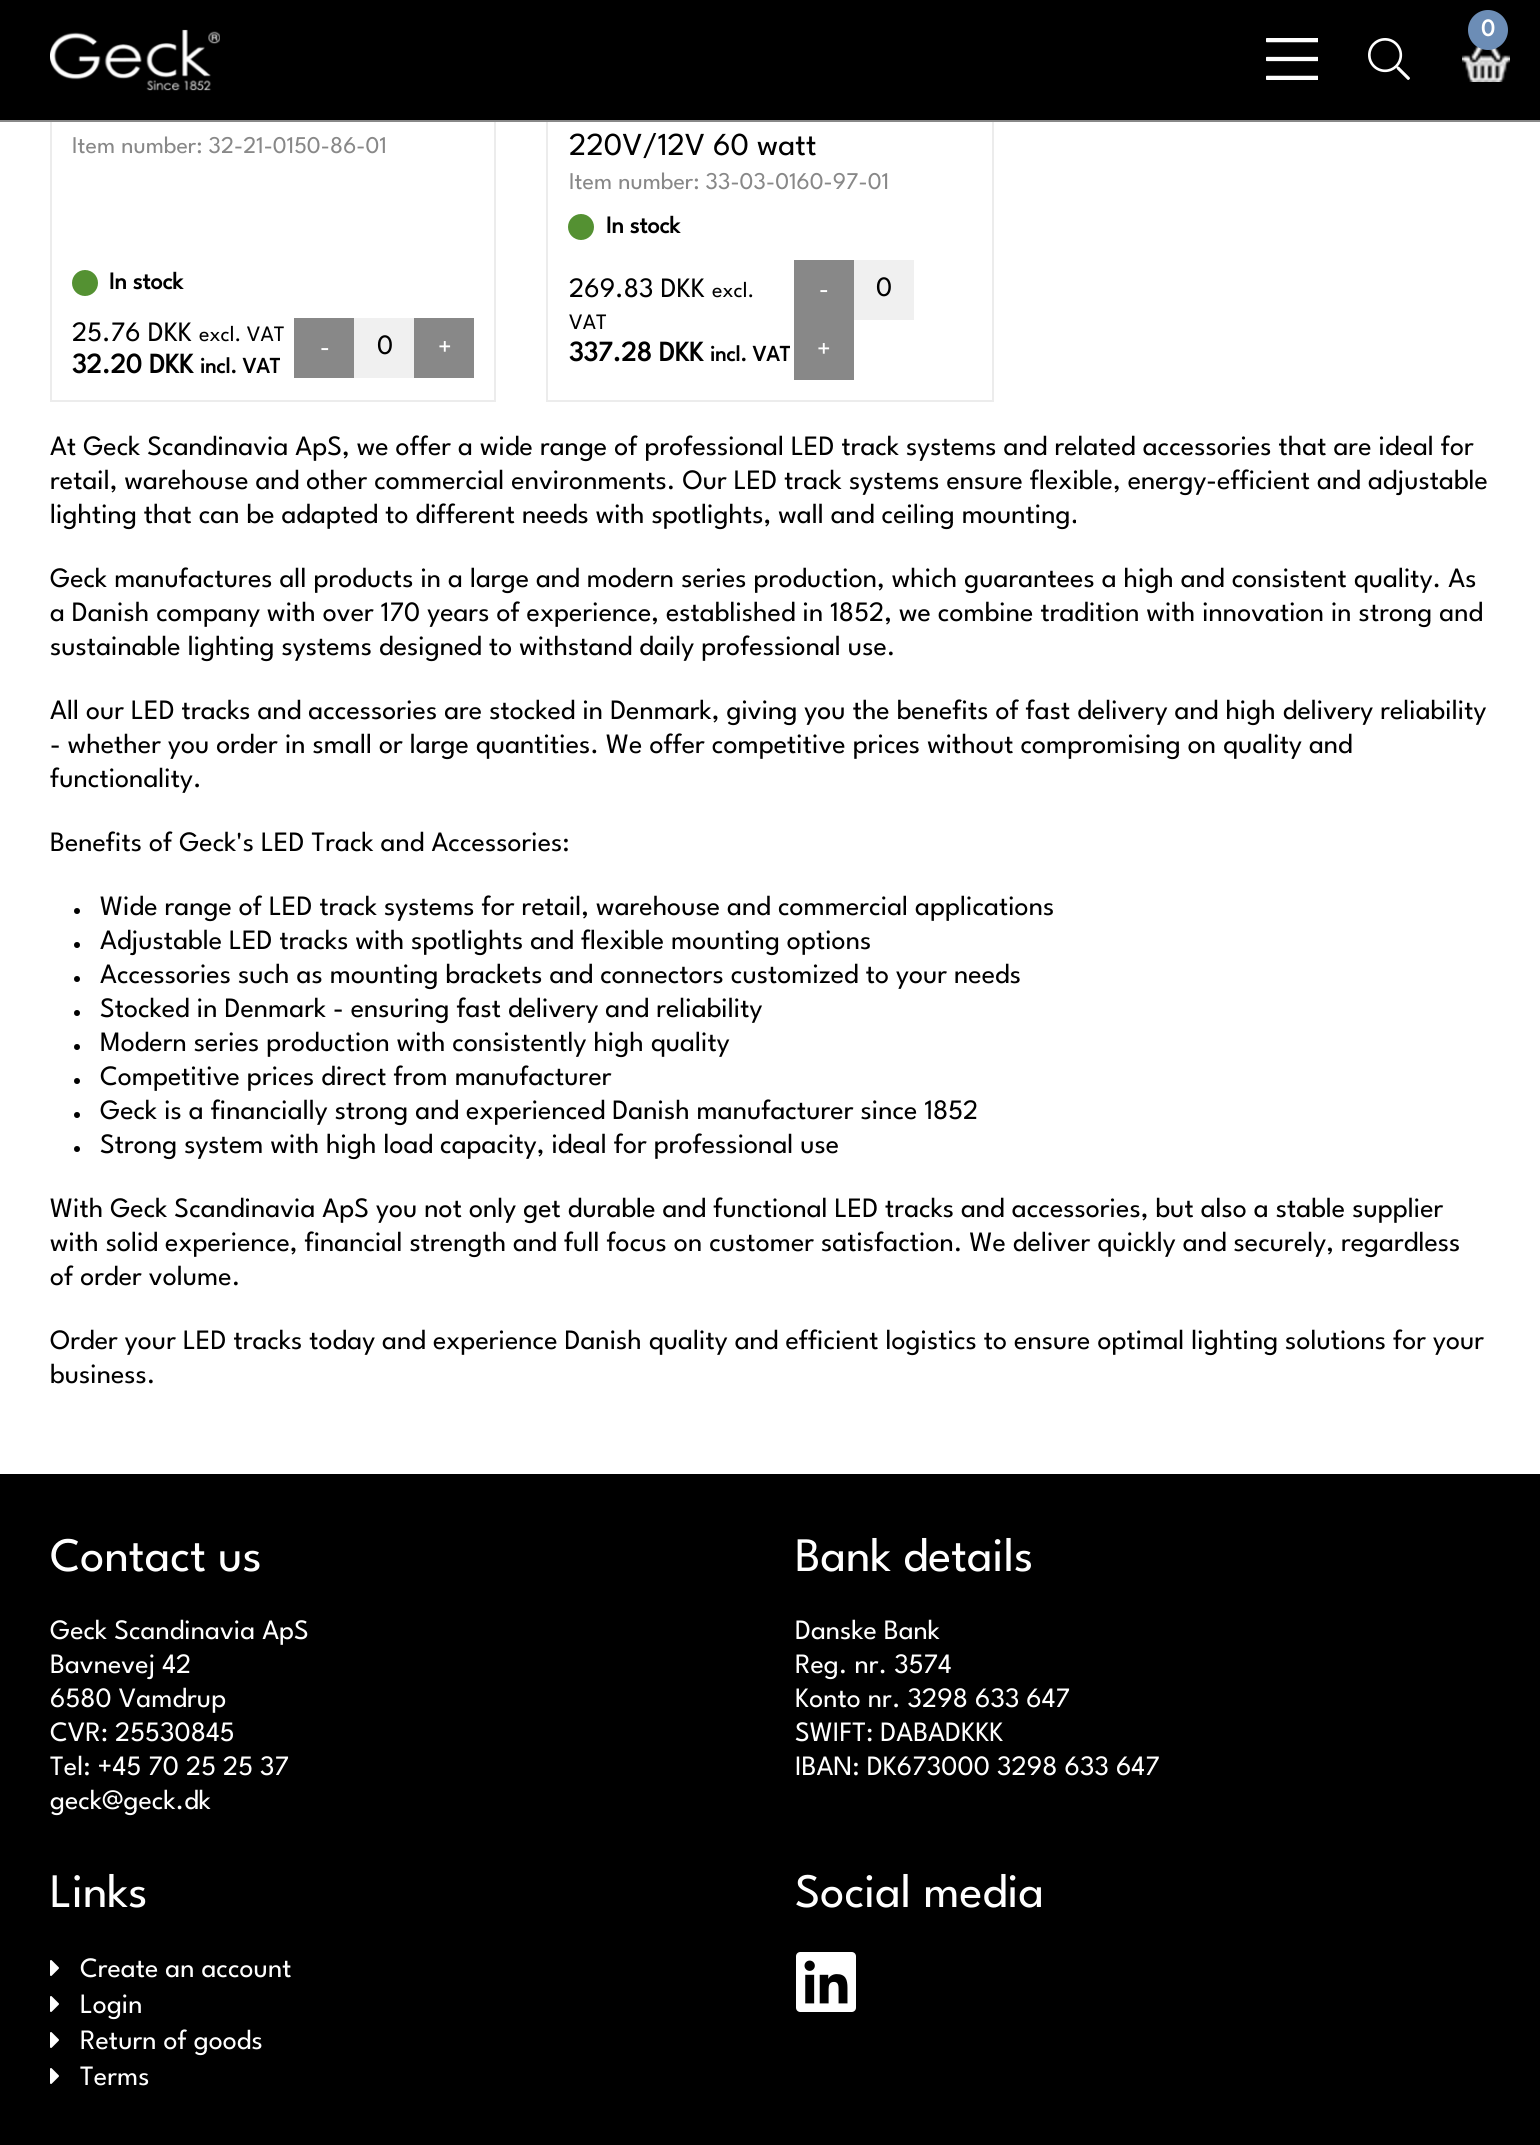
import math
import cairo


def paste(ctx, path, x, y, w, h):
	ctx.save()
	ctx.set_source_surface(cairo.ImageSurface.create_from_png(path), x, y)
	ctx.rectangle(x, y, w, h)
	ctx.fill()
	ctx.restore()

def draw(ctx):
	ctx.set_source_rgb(1, 1, 1)
	ctx.paint()
	ctx.rectangle(51, -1, 444, 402)
	ctx.set_source_rgb(0.922, 0.922, 0.922)
	ctx.stroke()
	ctx.rectangle(547, -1, 446, 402)
	ctx.stroke()
	ctx.set_source_rgb(0, 0, 0)
	ctx.rectangle(0, 0, 1540, 120)
	ctx.fill()
	ctx.set_source_rgb(0.533, 0.533, 0.533)
	ctx.rectangle(0, 120, 1540, 2)
	ctx.fill()
	paste(ctx, 'media/1.png', 50, 29, 170, 62)
	paste(ctx, 'media/2.png', 1462, 46, 48, 36)
	ctx.set_source_rgb(0.424, 0.553, 0.714)
	ctx.arc(1488, 30, 20, 0, 2 * math.pi)
	ctx.fill()
	ctx.select_font_face('League Spartan', cairo.FONT_SLANT_NORMAL, cairo.FONT_WEIGHT_BOLD)
	ctx.set_font_size(24)
	ctx.set_source_rgb(1, 1, 1)
	ctx.move_to(1481, 36)
	ctx.show_text('0')
	paste(ctx, 'media/3.png', 1266, 38, 52, 42)
	paste(ctx, 'media/4.png', 1368, 38, 42, 42)
	ctx.select_font_face('League Spartan Thin')
	ctx.set_source_rgb(0.533, 0.533, 0.533)
	ctx.move_to(72, 153)
	ctx.show_text('Item number: 32-21-0150-86-01')
	ctx.set_source_rgb(0.329, 0.569, 0.196)
	ctx.new_path()
	ctx.arc(85, 283, 13, 0, 2 * math.pi)
	ctx.fill()
	ctx.select_font_face('League Spartan', cairo.FONT_SLANT_NORMAL, cairo.FONT_WEIGHT_BOLD)
	ctx.set_source_rgb(0, 0, 0)
	ctx.move_to(109, 289)
	ctx.show_text('In stock')
	ctx.select_font_face('League Spartan Thin')
	ctx.set_font_size(28)
	ctx.move_to(72, 341)
	ctx.show_text('25.76 DKK')
	ctx.set_font_size(22)
	ctx.move_to(199, 341)
	ctx.show_text('excl. VAT')
	ctx.select_font_face('League Spartan', cairo.FONT_SLANT_NORMAL, cairo.FONT_WEIGHT_BOLD)
	ctx.set_font_size(28)
	ctx.move_to(72, 373)
	ctx.show_text('32.20 DKK')
	ctx.set_font_size(22)
	ctx.move_to(200, 373)
	ctx.show_text('incl. VAT')
	ctx.set_source_rgb(0.533, 0.533, 0.533)
	ctx.rectangle(294, 318, 60, 60)
	ctx.fill()
	ctx.select_font_face('League Spartan Thin')
	ctx.set_font_size(26)
	ctx.set_source_rgb(1, 1, 1)
	ctx.move_to(320, 355)
	ctx.show_text('-')
	ctx.set_source_rgb(0.941, 0.941, 0.941)
	ctx.rectangle(354, 318, 60, 60)
	ctx.fill()
	ctx.set_font_size(28)
	ctx.set_source_rgb(0, 0, 0)
	ctx.move_to(377, 354)
	ctx.show_text('0')
	ctx.set_source_rgb(0.533, 0.533, 0.533)
	ctx.rectangle(414, 318, 60, 60)
	ctx.fill()
	ctx.set_font_size(26)
	ctx.set_source_rgb(1, 1, 1)
	ctx.move_to(438, 355)
	ctx.show_text('+')
	ctx.set_font_size(32)
	ctx.set_source_rgb(0, 0, 0)
	ctx.move_to(569, 155)
	ctx.show_text('220V/12V 60 watt')
	ctx.set_font_size(24)
	ctx.set_source_rgb(0.533, 0.533, 0.533)
	ctx.move_to(569, 189)
	ctx.show_text('Item number: 33-03-0160-97-01')
	ctx.set_source_rgb(0.329, 0.569, 0.196)
	ctx.new_path()
	ctx.arc(581, 227, 13, 0, 2 * math.pi)
	ctx.fill()
	ctx.select_font_face('League Spartan', cairo.FONT_SLANT_NORMAL, cairo.FONT_WEIGHT_BOLD)
	ctx.set_source_rgb(0, 0, 0)
	ctx.move_to(606, 233)
	ctx.show_text('In stock')
	ctx.select_font_face('League Spartan Thin')
	ctx.set_font_size(28)
	ctx.move_to(569, 297)
	ctx.show_text('269.83 DKK')
	ctx.set_font_size(22)
	ctx.move_to(712, 297)
	ctx.show_text('excl.')
	ctx.move_to(569, 329)
	ctx.show_text('VAT')
	ctx.select_font_face('League Spartan', cairo.FONT_SLANT_NORMAL, cairo.FONT_WEIGHT_BOLD)
	ctx.set_font_size(28)
	ctx.move_to(569, 361)
	ctx.show_text('337.28 DKK')
	ctx.set_font_size(22)
	ctx.move_to(710, 361)
	ctx.show_text('incl. VAT')
	ctx.set_source_rgb(0.533, 0.533, 0.533)
	ctx.rectangle(794, 260, 60, 120)
	ctx.fill()
	ctx.select_font_face('League Spartan Thin')
	ctx.set_font_size(26)
	ctx.set_source_rgb(1, 1, 1)
	ctx.move_to(819, 297)
	ctx.show_text('-')
	ctx.set_source_rgb(0.941, 0.941, 0.941)
	ctx.rectangle(854, 260, 60, 60)
	ctx.fill()
	ctx.set_font_size(28)
	ctx.set_source_rgb(0, 0, 0)
	ctx.move_to(876, 296)
	ctx.show_text('0')
	ctx.set_font_size(26)
	ctx.set_source_rgb(1, 1, 1)
	ctx.move_to(817, 357)
	ctx.show_text('+')
	ctx.set_font_size(28)
	ctx.set_source_rgb(0, 0, 0)
	for x, y, s in [
		(50, 455, 'At Geck Scandinavia ApS, we offer a wide range of professional LED track systems and related accessories that are ideal for'),
		(50, 489, 'retail, warehouse and other commercial environments. Our LED track systems ensure flexible, energy-efficient and adjustable'),
		(50, 523, 'lighting that can be adapted to different needs with spotlights, wall and ceiling mounting.'),
		(50, 587, 'Geck manufactures all products in a large and modern series production, which guarantees a high and consistent quality. As'),
		(50, 621, 'a Danish company with over 170 years of experience, established in 1852, we combine tradition with innovation in strong and'),
		(50, 655, 'sustainable lighting systems designed to withstand daily professional use.'),
		(50, 719, 'All our LED tracks and accessories are stocked in Denmark, giving you the benefits of fast delivery and high delivery reliability'),
		(50, 753, '- whether you order in small or large quantities. We offer competitive prices without compromising on quality and'),
		(50, 787, 'functionality.'),
		(50, 851, 'Benefits of Geck\'s LED Track and Accessories:'),
	]:
		ctx.move_to(x, y)
		ctx.show_text(s)
	ctx.new_path()
	ctx.arc(77, 911, 3, 0, 2 * math.pi)
	ctx.fill()
	ctx.move_to(100, 915)
	ctx.show_text('Wide range of LED track systems for retail, warehouse and commercial applications')
	ctx.new_path()
	ctx.arc(77, 945, 3, 0, 2 * math.pi)
	ctx.fill()
	ctx.move_to(100, 949)
	ctx.show_text('Adjustable LED tracks with spotlights and flexible mounting options')
	ctx.new_path()
	ctx.arc(77, 979, 3, 0, 2 * math.pi)
	ctx.fill()
	ctx.move_to(100, 983)
	ctx.show_text('Accessories such as mounting brackets and connectors customized to your needs')
	ctx.new_path()
	ctx.arc(77, 1013, 3, 0, 2 * math.pi)
	ctx.fill()
	ctx.move_to(100, 1017)
	ctx.show_text('Stocked in Denmark - ensuring fast delivery and reliability')
	ctx.new_path()
	ctx.arc(77, 1047, 3, 0, 2 * math.pi)
	ctx.fill()
	ctx.move_to(100, 1051)
	ctx.show_text('Modern series production with consistently high quality')
	ctx.new_path()
	ctx.arc(77, 1081, 3, 0, 2 * math.pi)
	ctx.fill()
	ctx.move_to(100, 1085)
	ctx.show_text('Competitive prices direct from manufacturer')
	ctx.new_path()
	ctx.arc(77, 1115, 3, 0, 2 * math.pi)
	ctx.fill()
	ctx.move_to(100, 1119)
	ctx.show_text('Geck is a financially strong and experienced Danish manufacturer since 1852')
	ctx.new_path()
	ctx.arc(77, 1149, 3, 0, 2 * math.pi)
	ctx.fill()
	for x, y, s in [
		(100, 1153, 'Strong system with high load capacity, ideal for professional use'),
		(50, 1217, 'With Geck Scandinavia ApS you not only get durable and functional LED tracks and accessories, but also a stable supplier'),
		(50, 1251, 'with solid experience, financial strength and full focus on customer satisfaction. We deliver quickly and securely, regardless'),
		(50, 1285, 'of order volume.'),
		(50, 1349, 'Order your LED tracks today and experience Danish quality and efficient logistics to ensure optimal lighting solutions for your'),
		(50, 1383, 'business.'),
	]:
		ctx.move_to(x, y)
		ctx.show_text(s)
	ctx.rectangle(0, 1474, 1540, 671)
	ctx.fill()
	ctx.set_font_size(48)
	ctx.set_source_rgb(1, 1, 1)
	ctx.move_to(50, 1571)
	ctx.show_text('Contact us')
	ctx.set_font_size(28)
	for x, y, s in [
		(50, 1639, 'Geck Scandinavia ApS'),
		(50, 1673, 'Bavnevej 42'),
		(50, 1707, '6580 Vamdrup'),
		(50, 1741, 'CVR: 25530845'),
		(50, 1775, 'Tel: +45 70 25 25 37'),
		(50, 1809, 'geck@geck.dk'),
	]:
		ctx.move_to(x, y)
		ctx.show_text(s)
	ctx.set_font_size(48)
	ctx.move_to(795, 1571)
	ctx.show_text('Bank details')
	ctx.set_font_size(28)
	for x, y, s in [
		(795, 1639, 'Danske Bank'),
		(795, 1673, 'Reg. nr. 3574'),
		(795, 1707, 'Konto nr. 3298 633 647'),
		(795, 1741, 'SWIFT: DABADKKK'),
		(795, 1775, 'IBAN: DK673000 3298 633 647'),
	]:
		ctx.move_to(x, y)
		ctx.show_text(s)
	ctx.set_font_size(48)
	ctx.move_to(50, 1907)
	ctx.show_text('Links')
	paste(ctx, 'media/5.png', 50, 1960, 9, 16)
	ctx.set_font_size(28)
	ctx.move_to(80, 1977)
	ctx.show_text('Create an account')
	paste(ctx, 'media/5.png', 50, 1996, 9, 16)
	ctx.move_to(80, 2013)
	ctx.show_text('Login')
	paste(ctx, 'media/5.png', 50, 2032, 9, 16)
	ctx.move_to(80, 2049)
	ctx.show_text('Return of goods')
	paste(ctx, 'media/5.png', 50, 2068, 9, 16)
	ctx.move_to(80, 2085)
	ctx.show_text('Terms')
	ctx.set_font_size(48)
	ctx.move_to(795, 1907)
	ctx.show_text('Social media')
	paste(ctx, 'media/6.png', 796, 1952, 60, 60)


surface = cairo.ImageSurface(cairo.FORMAT_RGB24, 1540, 2145)
ctx = cairo.Context(surface)
options = cairo.FontOptions()
options.set_hint_metrics(cairo.HINT_METRICS_OFF)
options.set_hint_style(cairo.HINT_STYLE_NONE)
ctx.set_font_options(options)
ctx.set_miter_limit(4)
draw(ctx)
surface.write_to_png('image.png')
